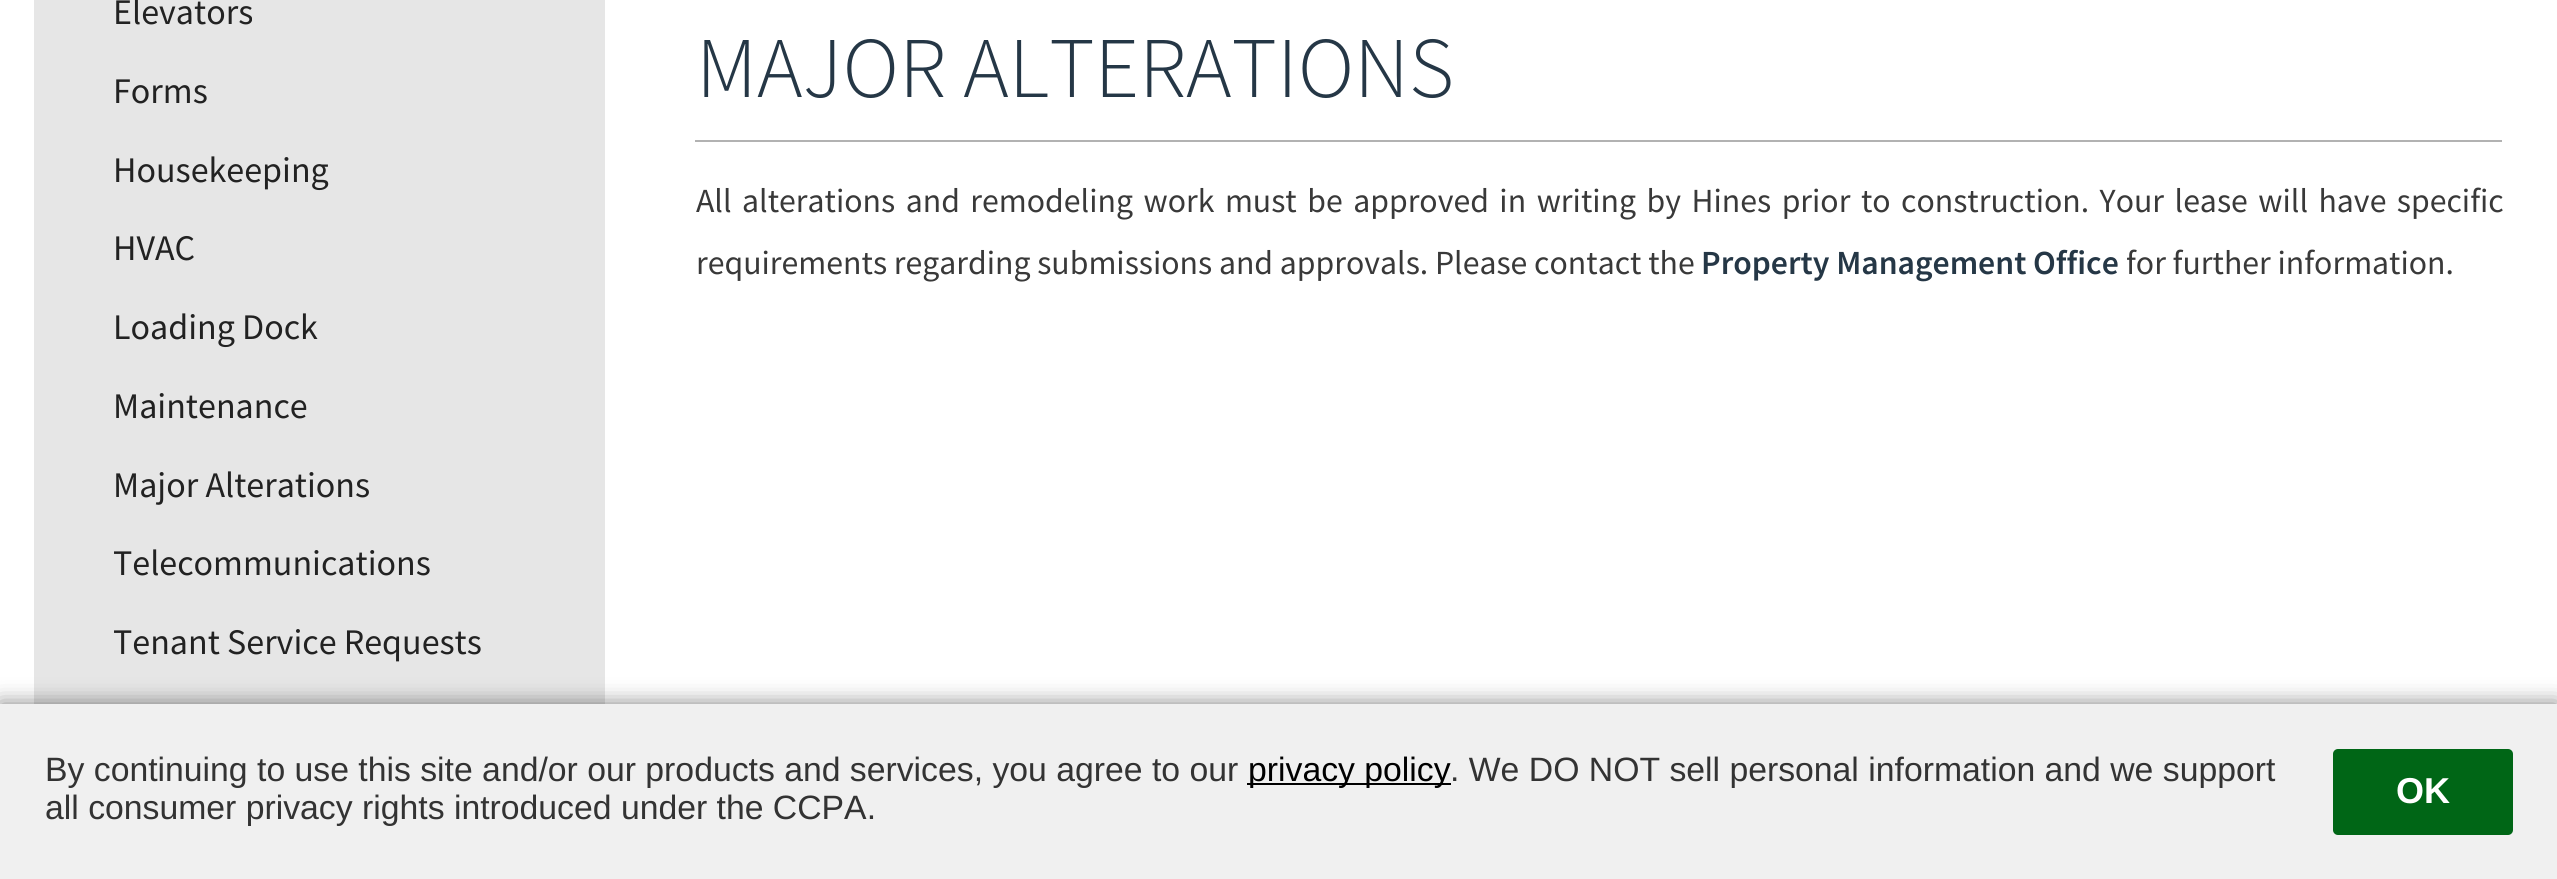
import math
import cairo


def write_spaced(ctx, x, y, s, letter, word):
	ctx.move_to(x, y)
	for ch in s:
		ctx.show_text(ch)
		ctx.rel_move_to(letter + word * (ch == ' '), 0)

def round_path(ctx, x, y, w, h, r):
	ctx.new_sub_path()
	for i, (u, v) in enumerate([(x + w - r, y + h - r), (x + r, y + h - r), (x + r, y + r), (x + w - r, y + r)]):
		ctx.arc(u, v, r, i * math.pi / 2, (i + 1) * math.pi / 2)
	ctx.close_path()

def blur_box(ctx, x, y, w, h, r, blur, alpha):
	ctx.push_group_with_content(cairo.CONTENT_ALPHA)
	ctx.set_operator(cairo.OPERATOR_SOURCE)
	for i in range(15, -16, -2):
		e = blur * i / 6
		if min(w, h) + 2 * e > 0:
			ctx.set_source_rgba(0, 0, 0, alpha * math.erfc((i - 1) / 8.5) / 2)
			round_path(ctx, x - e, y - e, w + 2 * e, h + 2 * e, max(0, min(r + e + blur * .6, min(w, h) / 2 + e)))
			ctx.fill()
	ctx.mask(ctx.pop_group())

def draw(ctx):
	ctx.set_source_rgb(1, 1, 1)
	ctx.paint()
	ctx.set_source_rgb(0.902, 0.902, 0.902)
	ctx.rectangle(34, 0, 571, 704)
	ctx.fill()
	ctx.select_font_face('Source Sans Pro')
	ctx.set_font_size(36)
	ctx.set_source_rgb(0.133, 0.133, 0.133)
	for x, y, s in [
		(113, 24, 'Elevators'),
		(113, 103, 'Forms'),
		(113, 182, 'Housekeeping'),
		(113, 260, 'HVAC'),
		(113, 339, 'Loading Dock'),
		(113, 418, 'Maintenance'),
		(113, 497, 'Major Alterations'),
		(113, 575, 'Telecommunications'),
		(113, 654, 'Tenant Service Requests'),
	]:
		ctx.move_to(x, y)
		ctx.show_text(s)
	ctx.set_source_rgb(0.698, 0.698, 0.698)
	ctx.rectangle(695, 140, 1807, 2)
	ctx.fill()
	ctx.select_font_face('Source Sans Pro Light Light')
	ctx.set_font_size(86.5)
	ctx.set_source_rgb(0.145, 0.216, 0.275)
	ctx.move_to(696, 97)
	ctx.show_text('MAJOR ALTERATIONS')
	ctx.select_font_face('Source Sans Pro')
	ctx.set_font_size(33.75)
	ctx.set_source_rgb(0.224, 0.224, 0.224)
	write_spaced(ctx, 696, 212, 'All alterations and remodeling work must be approved in writing by Hines prior to construction. Your lease will have specific', 0, 3.75)
	ctx.move_to(696, 274)
	ctx.show_text('requirements regarding submissions and approvals. Please contact the')
	ctx.select_font_face('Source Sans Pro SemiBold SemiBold')
	ctx.set_source_rgb(0.145, 0.216, 0.275)
	ctx.move_to(1701, 274)
	ctx.show_text('Property Management Office')
	ctx.select_font_face('Source Sans Pro')
	ctx.set_source_rgb(0.224, 0.224, 0.224)
	ctx.move_to(2126, 274)
	ctx.show_text('for further information.')
	ctx.set_source_rgb(0, 0, 0)
	blur_box(ctx, 0, 704, 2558, 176, 0, 11, 0.5)
	ctx.set_source_rgb(0.941, 0.941, 0.941)
	ctx.rectangle(0, 704, 2557, 175)
	ctx.fill()
	ctx.select_font_face('Liberation Sans')
	ctx.set_source_rgb(0.2, 0.2, 0.2)
	ctx.move_to(45, 781)
	ctx.show_text('By continuing to use this site and/or our products and services, you agree to our')
	ctx.set_source_rgb(0, 0, 0)
	ctx.rectangle(1247, 783, 204, 2)
	ctx.fill()
	ctx.move_to(1248, 781)
	ctx.show_text('privacy policy')
	ctx.set_source_rgb(0.2, 0.2, 0.2)
	ctx.move_to(1450, 781)
	ctx.show_text('. We DO NOT sell personal information and we support')
	ctx.move_to(45, 819)
	ctx.show_text('all consumer privacy rights introduced under the CCPA.')
	ctx.set_source_rgb(0, 0.4, 0.086)
	round_path(ctx, 2333, 749, 180, 86, 5)
	ctx.fill()
	ctx.select_font_face('Liberation Sans', cairo.FONT_SLANT_NORMAL, cairo.FONT_WEIGHT_BOLD)
	ctx.set_font_size(36)
	ctx.set_source_rgb(1, 1, 1)
	ctx.move_to(2396, 803)
	ctx.show_text('OK')


surface = cairo.ImageSurface(cairo.FORMAT_RGB24, 2557, 879)
ctx = cairo.Context(surface)
options = cairo.FontOptions()
options.set_hint_metrics(cairo.HINT_METRICS_OFF)
options.set_hint_style(cairo.HINT_STYLE_NONE)
ctx.set_font_options(options)
ctx.set_miter_limit(4)
draw(ctx)
surface.write_to_png('image.png')
